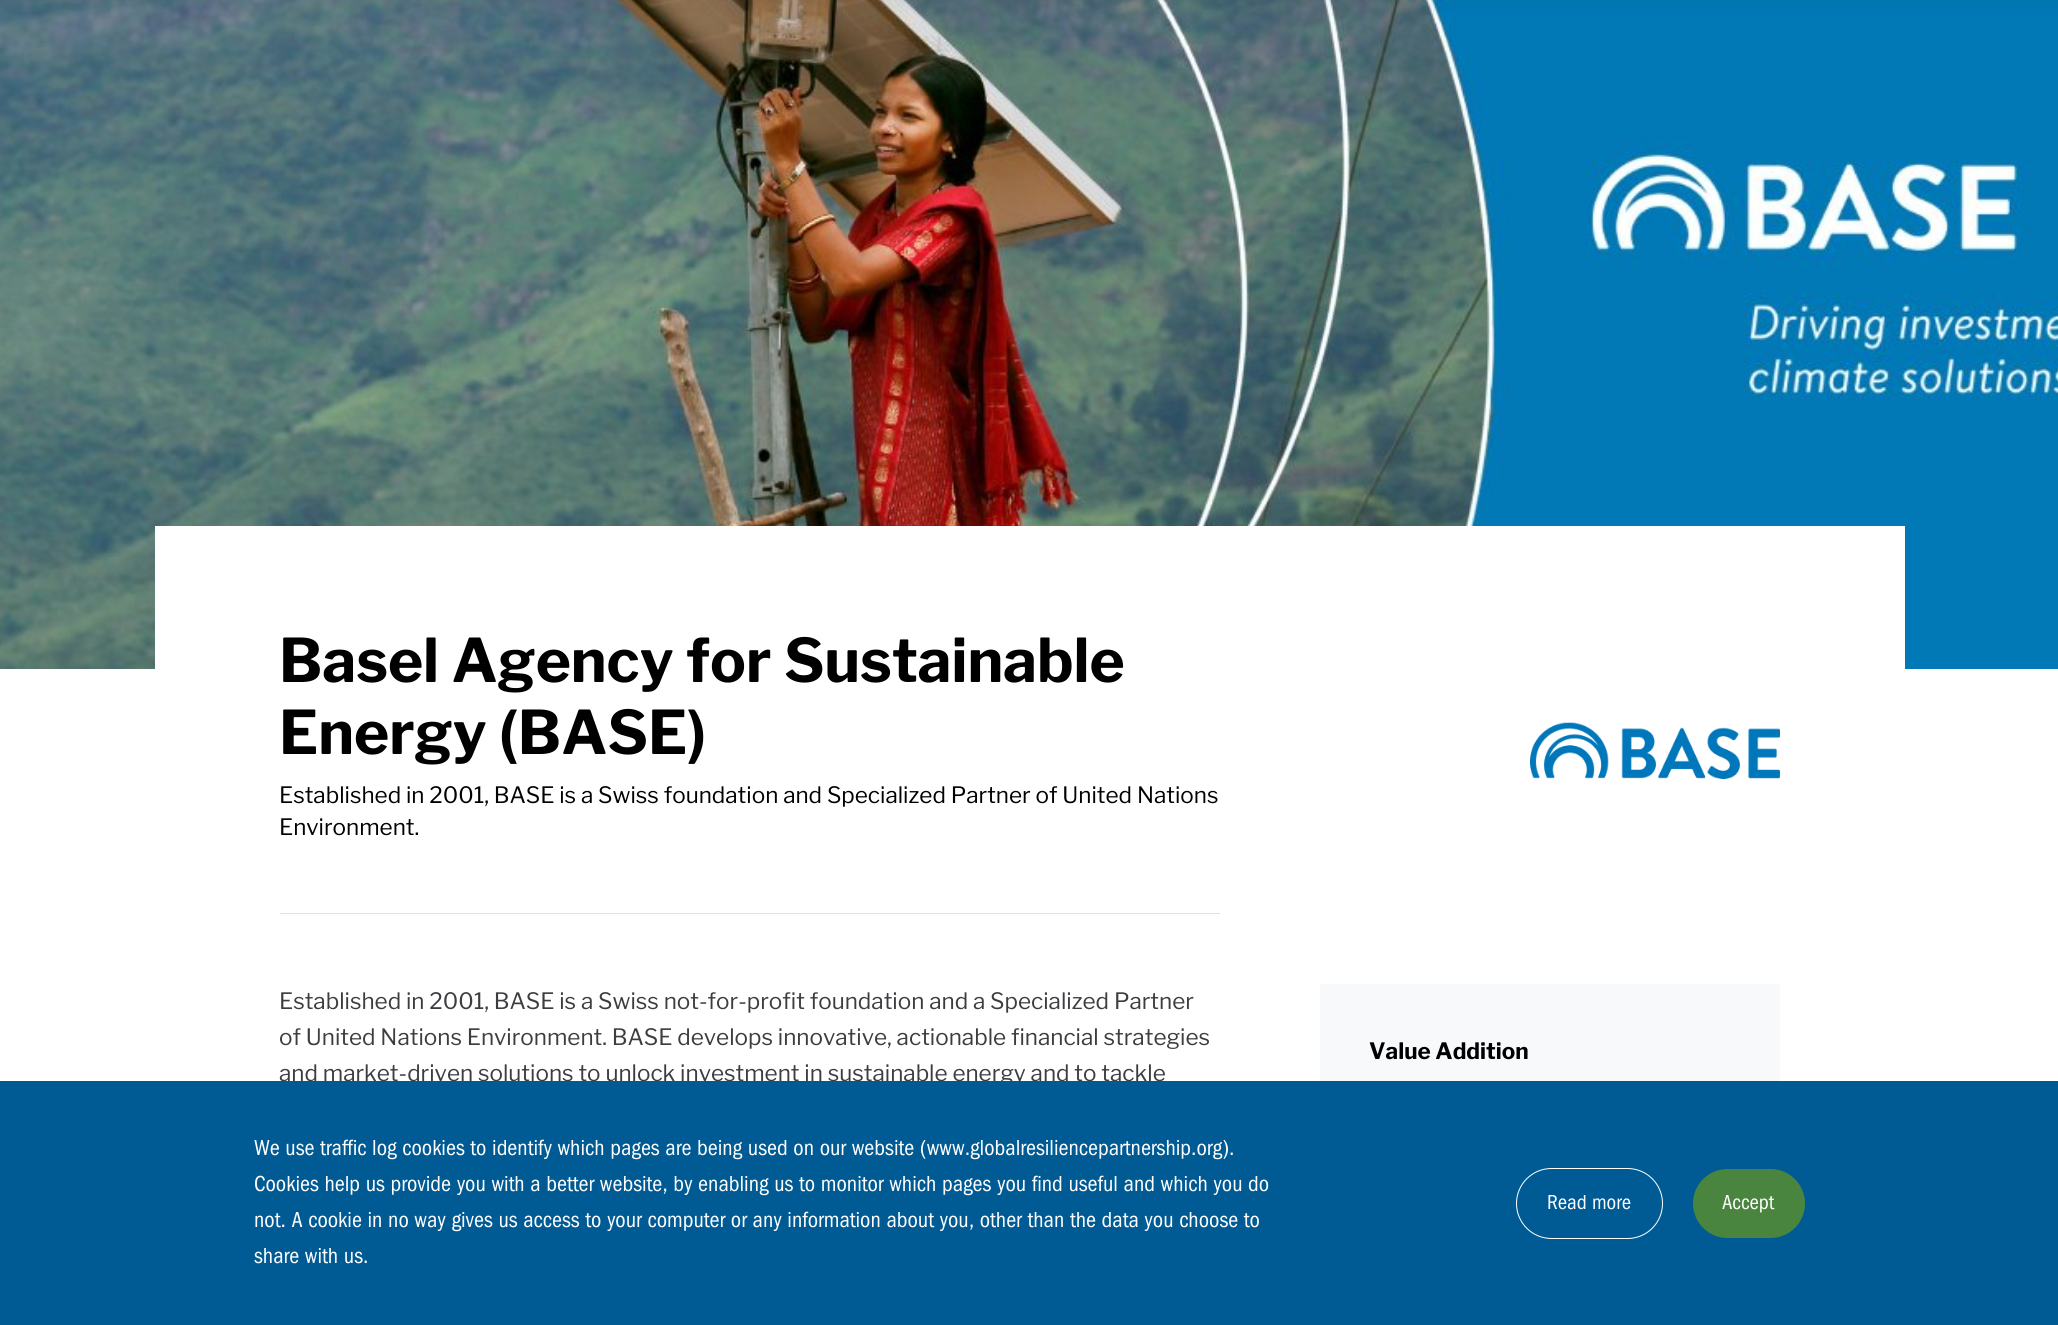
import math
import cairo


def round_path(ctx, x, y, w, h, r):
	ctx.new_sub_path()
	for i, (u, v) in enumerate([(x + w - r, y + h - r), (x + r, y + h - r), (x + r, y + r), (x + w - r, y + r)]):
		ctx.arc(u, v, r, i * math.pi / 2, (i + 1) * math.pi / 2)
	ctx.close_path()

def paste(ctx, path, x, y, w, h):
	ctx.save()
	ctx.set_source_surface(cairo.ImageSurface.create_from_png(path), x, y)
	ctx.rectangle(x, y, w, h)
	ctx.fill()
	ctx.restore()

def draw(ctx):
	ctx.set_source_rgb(1, 1, 1)
	ctx.paint()
	paste(ctx, 'media/1.png', 0, 0, 2058, 669)
	ctx.set_source_rgb(1, 1, 1)
	ctx.rectangle(155, 526, 1750, 143)
	ctx.fill()
	ctx.set_source_rgb(0.875, 0.882, 0.886)
	ctx.rectangle(280, 913, 940, 1)
	ctx.fill()
	ctx.select_font_face('Libre Franklin', cairo.FONT_SLANT_NORMAL, cairo.FONT_WEIGHT_BOLD)
	ctx.set_font_size(60)
	ctx.set_source_rgb(0, 0, 0)
	ctx.move_to(279, 682)
	ctx.show_text('Basel Agency for Sustainable')
	ctx.move_to(279, 754)
	ctx.show_text('Energy (BASE)')
	ctx.select_font_face('Libre Franklin')
	ctx.set_font_size(22.5)
	ctx.move_to(279, 803)
	ctx.show_text('Established in 2001, BASE is a Swiss foundation and Specialized Partner of United Nations')
	ctx.move_to(279, 835)
	ctx.show_text('Environment.')
	paste(ctx, 'media/2.png', 1530, 722, 250, 57)
	ctx.set_source_rgb(0.235, 0.239, 0.251)
	for x, y, s in [
		(279, 1009, 'Established in 2001, BASE is a Swiss not-for-profit foundation and a Specialized Partner'),
		(279, 1045, 'of United Nations Environment. BASE develops innovative, actionable financial strategies'),
		(279, 1081, 'and market-driven solutions to unlock investment in sustainable energy and to tackle'),
	]:
		ctx.move_to(x, y)
		ctx.show_text(s)
	ctx.set_source_rgb(0.965, 0.973, 0.98)
	ctx.rectangle(1320, 984, 460, 97)
	ctx.fill()
	ctx.select_font_face('Libre Franklin', cairo.FONT_SLANT_NORMAL, cairo.FONT_WEIGHT_BOLD)
	ctx.set_source_rgb(0, 0, 0)
	ctx.move_to(1369, 1059)
	ctx.show_text('Value Addition')
	ctx.set_source_rgb(0, 0.357, 0.584)
	ctx.rectangle(0, 1081, 2058, 244)
	ctx.fill()
	ctx.select_font_face('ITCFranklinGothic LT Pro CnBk')
	ctx.set_source_rgb(1, 1, 1)
	for x, y, s in [
		(254, 1155, 'We use traffic log cookies to identify which pages are being used on our website (www.globalresiliencepartnership.org).'),
		(254, 1191, 'Cookies help us provide you with a better website, by enabling us to monitor which pages you find useful and which you do'),
		(254, 1227, 'not. A cookie in no way gives us access to your computer or any information about you, other than the data you choose to'),
		(254, 1263, 'share with us.'),
	]:
		ctx.move_to(x, y)
		ctx.show_text(s)
	round_path(ctx, 1516.5, 1168.5, 146, 70, 35)
	ctx.set_line_width(1)
	ctx.stroke()
	ctx.set_font_size(21)
	ctx.move_to(1547, 1209)
	ctx.show_text('Read more')
	ctx.set_source_rgb(0.286, 0.522, 0.243)
	round_path(ctx, 1693, 1169, 112, 69, 34.5)
	ctx.fill()
	ctx.set_source_rgb(1, 1, 1)
	ctx.move_to(1722, 1209)
	ctx.show_text('Accept')


surface = cairo.ImageSurface(cairo.FORMAT_RGB24, 2058, 1325)
ctx = cairo.Context(surface)
options = cairo.FontOptions()
options.set_hint_metrics(cairo.HINT_METRICS_OFF)
options.set_hint_style(cairo.HINT_STYLE_NONE)
ctx.set_font_options(options)
ctx.set_miter_limit(4)
draw(ctx)
surface.write_to_png('image.png')
